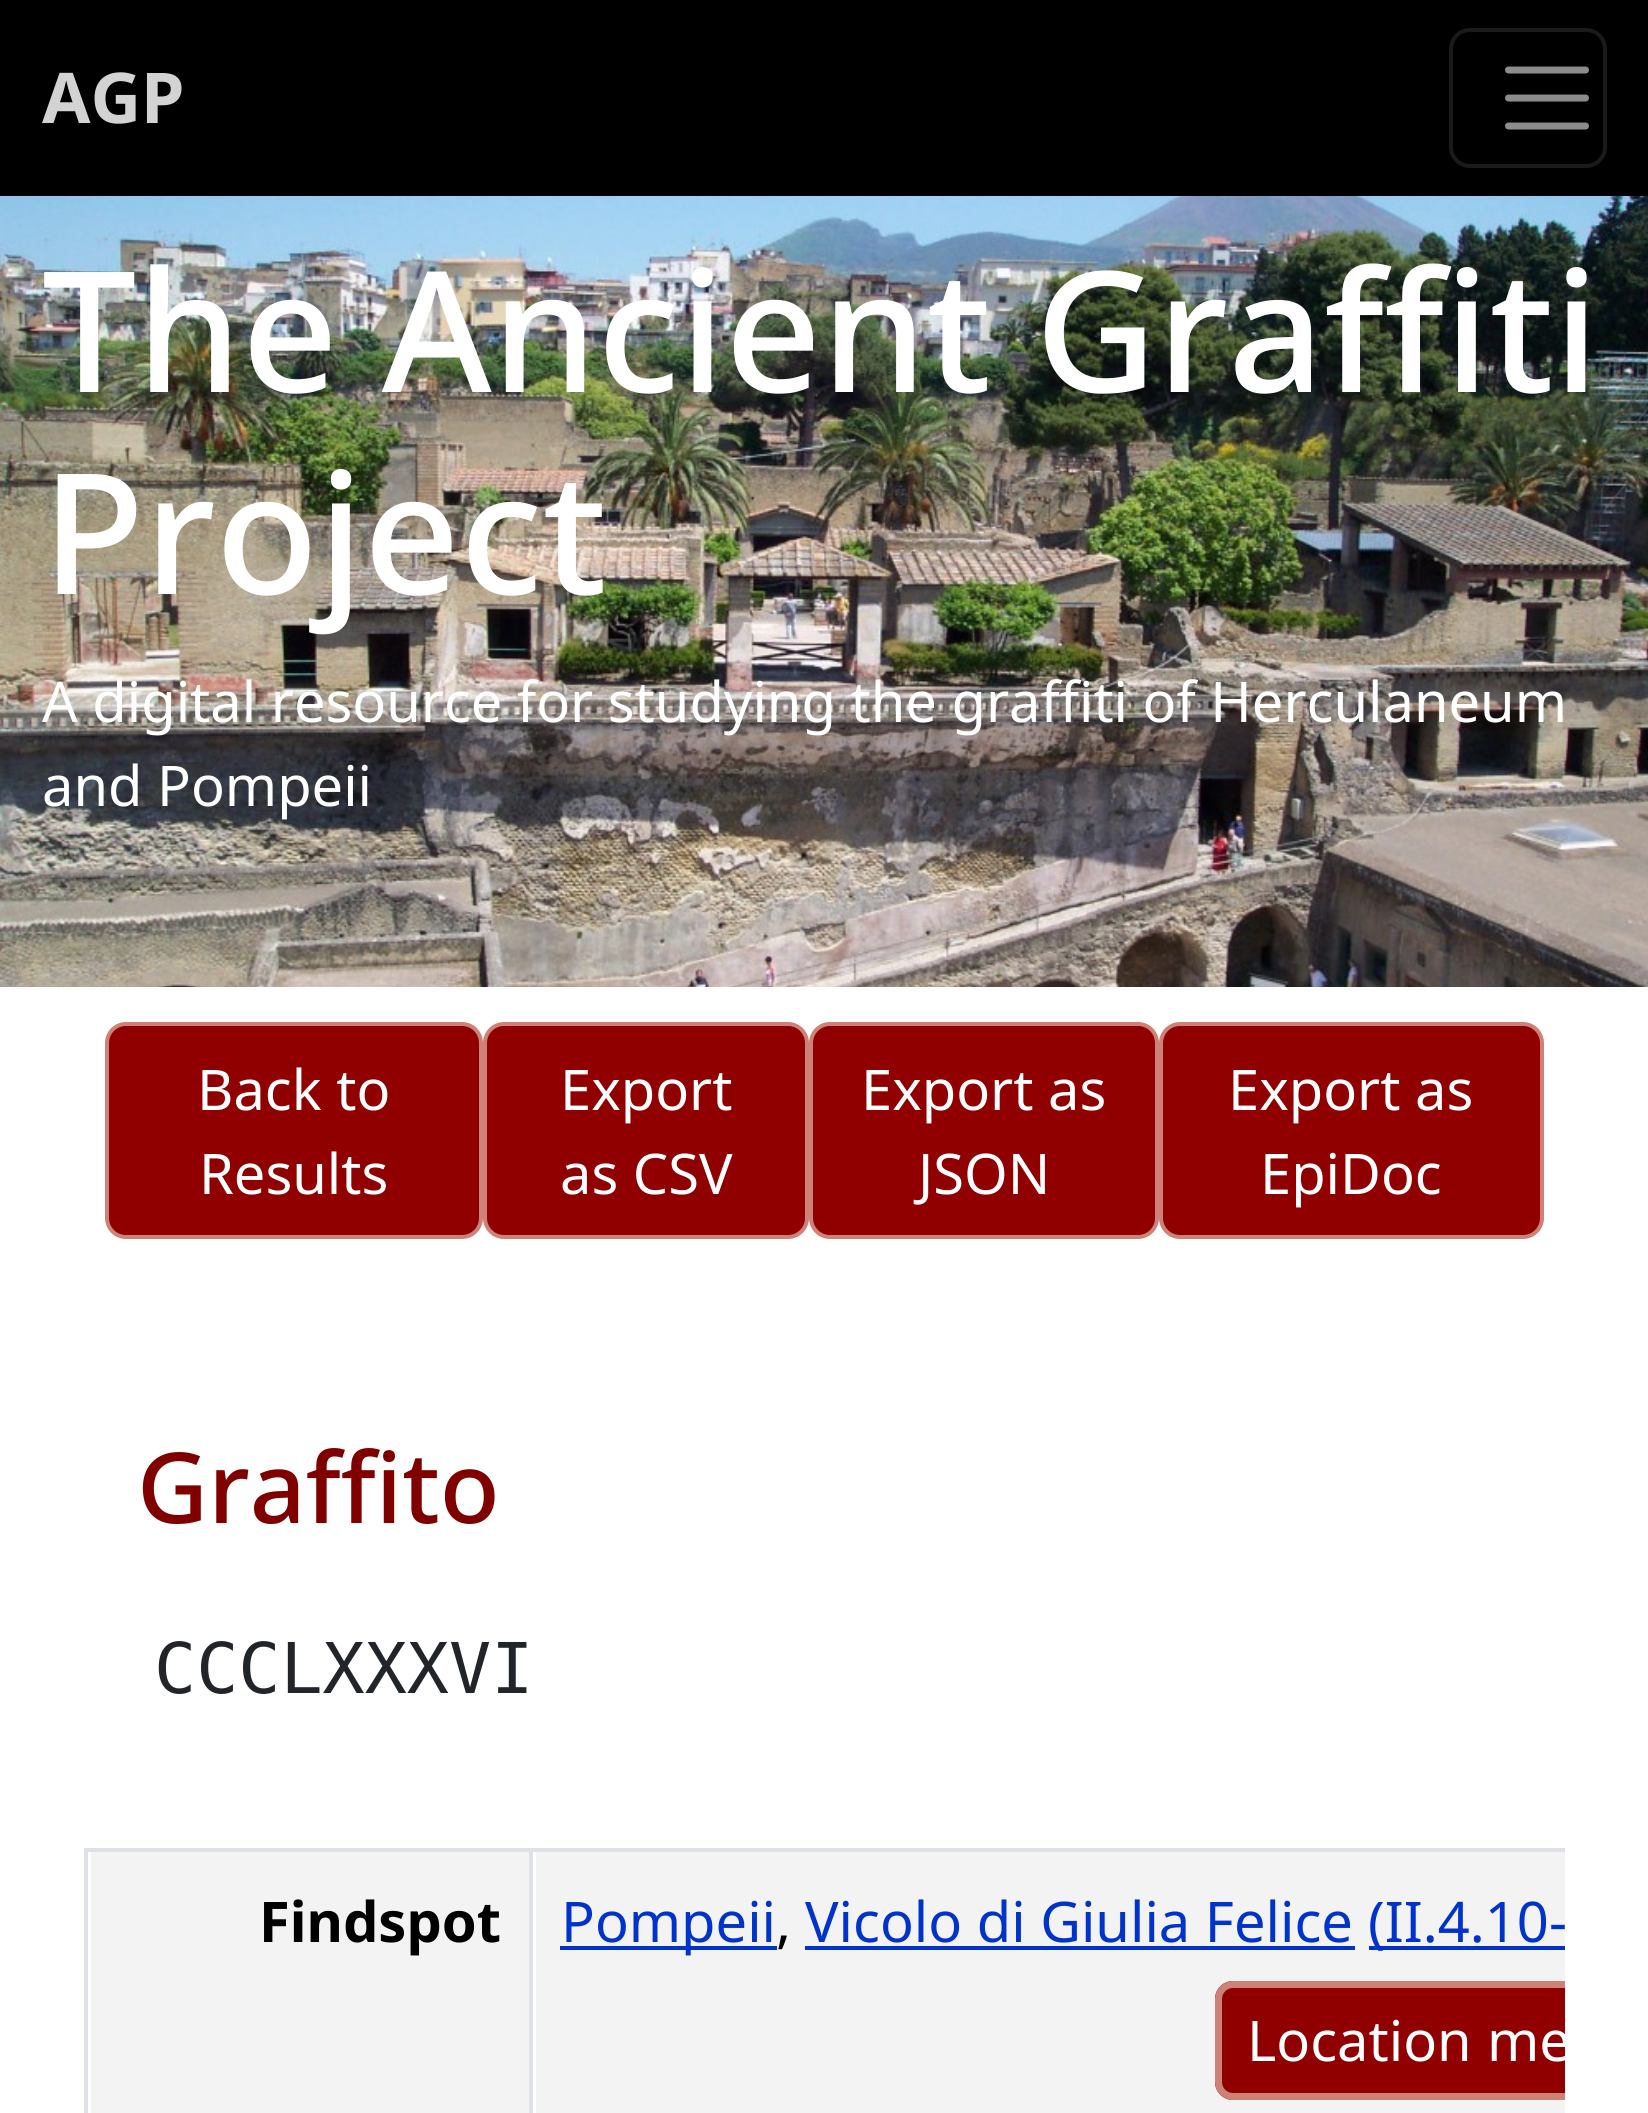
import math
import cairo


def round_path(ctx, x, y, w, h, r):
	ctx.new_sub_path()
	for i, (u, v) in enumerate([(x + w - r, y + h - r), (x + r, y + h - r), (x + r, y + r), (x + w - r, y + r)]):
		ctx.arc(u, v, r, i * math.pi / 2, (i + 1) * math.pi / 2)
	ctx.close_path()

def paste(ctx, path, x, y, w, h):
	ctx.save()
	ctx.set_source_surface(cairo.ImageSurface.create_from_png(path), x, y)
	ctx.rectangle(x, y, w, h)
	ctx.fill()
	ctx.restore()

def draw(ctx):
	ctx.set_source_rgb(1, 1, 1)
	ctx.paint()
	ctx.set_source_rgb(0, 0, 0)
	ctx.rectangle(0, 0, 1648, 196)
	ctx.fill()
	ctx.select_font_face('Noto Sans', cairo.FONT_SLANT_NORMAL, cairo.FONT_WEIGHT_BOLD)
	ctx.set_font_size(70)
	ctx.set_source_rgb(0.827, 0.827, 0.827)
	ctx.move_to(42, 123)
	ctx.show_text('AGP')
	round_path(ctx, 1451, 30, 154, 136, 19)
	ctx.set_source_rgb(0.102, 0.102, 0.102)
	ctx.set_line_width(4)
	ctx.stroke()
	ctx.new_path()
	ctx.move_to(1508.5, 70)
	ctx.line_to(1585.5, 70)
	ctx.move_to(1508.5, 98)
	ctx.line_to(1585.5, 98)
	ctx.move_to(1508.5, 126)
	ctx.line_to(1585.5, 126)
	ctx.set_source_rgb(0.549, 0.549, 0.549)
	ctx.set_line_width(7)
	ctx.set_line_cap(cairo.LINE_CAP_ROUND)
	ctx.stroke()
	paste(ctx, 'media/1.png', 0, 196, 1648, 791)
	ctx.select_font_face('Noto Sans Medium')
	ctx.set_font_size(168)
	ctx.set_source_rgb(1, 1, 1)
	ctx.move_to(42, 392)
	ctx.show_text('The Ancient Graffiti')
	ctx.move_to(42, 594)
	ctx.show_text('Project')
	ctx.select_font_face('Noto Sans')
	ctx.set_font_size(56)
	ctx.move_to(42, 722)
	ctx.show_text('A digital resource for studying the graffiti of Herculaneum')
	ctx.move_to(42, 806)
	ctx.show_text('and Pompeii')
	ctx.set_source_rgb(0.565, 0, 0)
	round_path(ctx, 107, 1024, 374, 213, 19)
	ctx.fill_preserve()
	ctx.set_source_rgb(0.808, 0.506, 0.467)
	ctx.set_line_width(4)
	ctx.set_line_cap(cairo.LINE_CAP_BUTT)
	ctx.stroke()
	ctx.set_source_rgb(1, 1, 1)
	ctx.move_to(197, 1110)
	ctx.show_text('Back to')
	ctx.move_to(199, 1194)
	ctx.show_text('Results')
	ctx.set_source_rgb(0.565, 0, 0)
	round_path(ctx, 485, 1024, 322, 213, 19)
	ctx.fill_preserve()
	ctx.set_source_rgb(0.808, 0.506, 0.467)
	ctx.stroke()
	ctx.set_source_rgb(1, 1, 1)
	ctx.move_to(560, 1110)
	ctx.show_text('Export')
	ctx.move_to(560, 1194)
	ctx.show_text('as CSV')
	ctx.set_source_rgb(0.565, 0, 0)
	round_path(ctx, 811, 1024, 346, 213, 19)
	ctx.fill_preserve()
	ctx.set_source_rgb(0.808, 0.506, 0.467)
	ctx.stroke()
	ctx.set_source_rgb(1, 1, 1)
	ctx.move_to(861, 1110)
	ctx.show_text('Export as')
	ctx.move_to(918, 1194)
	ctx.show_text('JSON')
	ctx.set_source_rgb(0.565, 0, 0)
	round_path(ctx, 1161, 1024, 381, 213, 19)
	ctx.fill_preserve()
	ctx.set_source_rgb(0.808, 0.506, 0.467)
	ctx.stroke()
	ctx.set_source_rgb(1, 1, 1)
	ctx.move_to(1228, 1110)
	ctx.show_text('Export as')
	ctx.move_to(1260, 1194)
	ctx.show_text('EpiDoc')
	ctx.select_font_face('Noto Sans Medium')
	ctx.set_font_size(98)
	ctx.set_source_rgb(0.502, 0, 0)
	ctx.move_to(137, 1523)
	ctx.show_text('Graffito')
	ctx.select_font_face('DejaVu Sans Mono')
	ctx.set_font_size(70)
	ctx.set_source_rgb(0.129, 0.145, 0.161)
	ctx.move_to(154, 1693)
	ctx.show_text('CCCLXXXVI')
	ctx.set_source_rgb(0.871, 0.886, 0.902)
	ctx.rectangle(84, 1848, 1481, 4)
	ctx.fill()
	ctx.set_source_rgb(0.953, 0.953, 0.953)
	ctx.rectangle(91, 1852, 438, 261)
	ctx.fill()
	ctx.set_source_rgb(0.871, 0.886, 0.902)
	ctx.rectangle(84, 1848, 4, 265)
	ctx.fill()
	ctx.select_font_face('Noto Sans', cairo.FONT_SLANT_NORMAL, cairo.FONT_WEIGHT_BOLD)
	ctx.set_font_size(56)
	ctx.set_source_rgb(0, 0, 0)
	ctx.move_to(259, 1942)
	ctx.show_text('Findspot')
	ctx.set_source_rgb(0.953, 0.953, 0.953)
	ctx.rectangle(536, 1852, 1029, 261)
	ctx.fill()
	ctx.set_source_rgb(0.871, 0.886, 0.902)
	ctx.rectangle(529, 1848, 4, 265)
	ctx.fill()
	ctx.set_source_rgb(0, 0.2, 0.8)
	ctx.rectangle(560, 1946, 217, 4)
	ctx.fill()
	ctx.select_font_face('Noto Sans')
	ctx.move_to(561, 1942)
	ctx.show_text('Pompeii')
	ctx.set_source_rgb(0, 0, 0)
	ctx.move_to(776, 1942)
	ctx.show_text(',')
	ctx.set_source_rgb(0, 0.2, 0.8)
	ctx.move_to(805, 1942)
	ctx.show_text('Vicolo di Giulia Felice')
	ctx.rectangle(805, 1946, 550, 4)
	ctx.fill()
	ctx.rectangle(1369, 1946, 196, 4)
	ctx.fill()
	ctx.move_to(1368, 1942)
	ctx.show_text('(II.4.10-')
	ctx.set_source_rgb(0.565, 0, 0)
	ctx.new_path()
	ctx.move_to(1233, 1981)
	ctx.line_to(1565, 1981)
	ctx.line_to(1565, 2100)
	ctx.line_to(1233, 2100)
	ctx.curve_to(1223, 2100, 1215, 2092, 1215, 2082)
	ctx.line_to(1215, 1999)
	ctx.curve_to(1215, 1989, 1223, 1981, 1233, 1981)
	ctx.close_path()
	ctx.fill()
	ctx.save()
	ctx.rectangle(84, 1848, 1481, 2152)
	ctx.clip()
	round_path(ctx, 1218.5, 1984.5, 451, 112, 14.5)
	ctx.set_source_rgb(0.808, 0.506, 0.467)
	ctx.set_line_width(7)
	ctx.stroke()
	ctx.restore()
	ctx.set_source_rgb(1, 1, 1)
	ctx.move_to(1247, 2061)
	ctx.show_text('Location')
	ctx.save()
	ctx.rectangle(84, 1848, 1481, 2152)
	ctx.clip()
	ctx.move_to(1487, 2061)
	ctx.show_text('me')
	ctx.restore()


surface = cairo.ImageSurface(cairo.FORMAT_RGB24, 1648, 2113)
ctx = cairo.Context(surface)
options = cairo.FontOptions()
options.set_hint_metrics(cairo.HINT_METRICS_OFF)
options.set_hint_style(cairo.HINT_STYLE_NONE)
ctx.set_font_options(options)
ctx.set_miter_limit(4)
draw(ctx)
surface.write_to_png('image.png')
